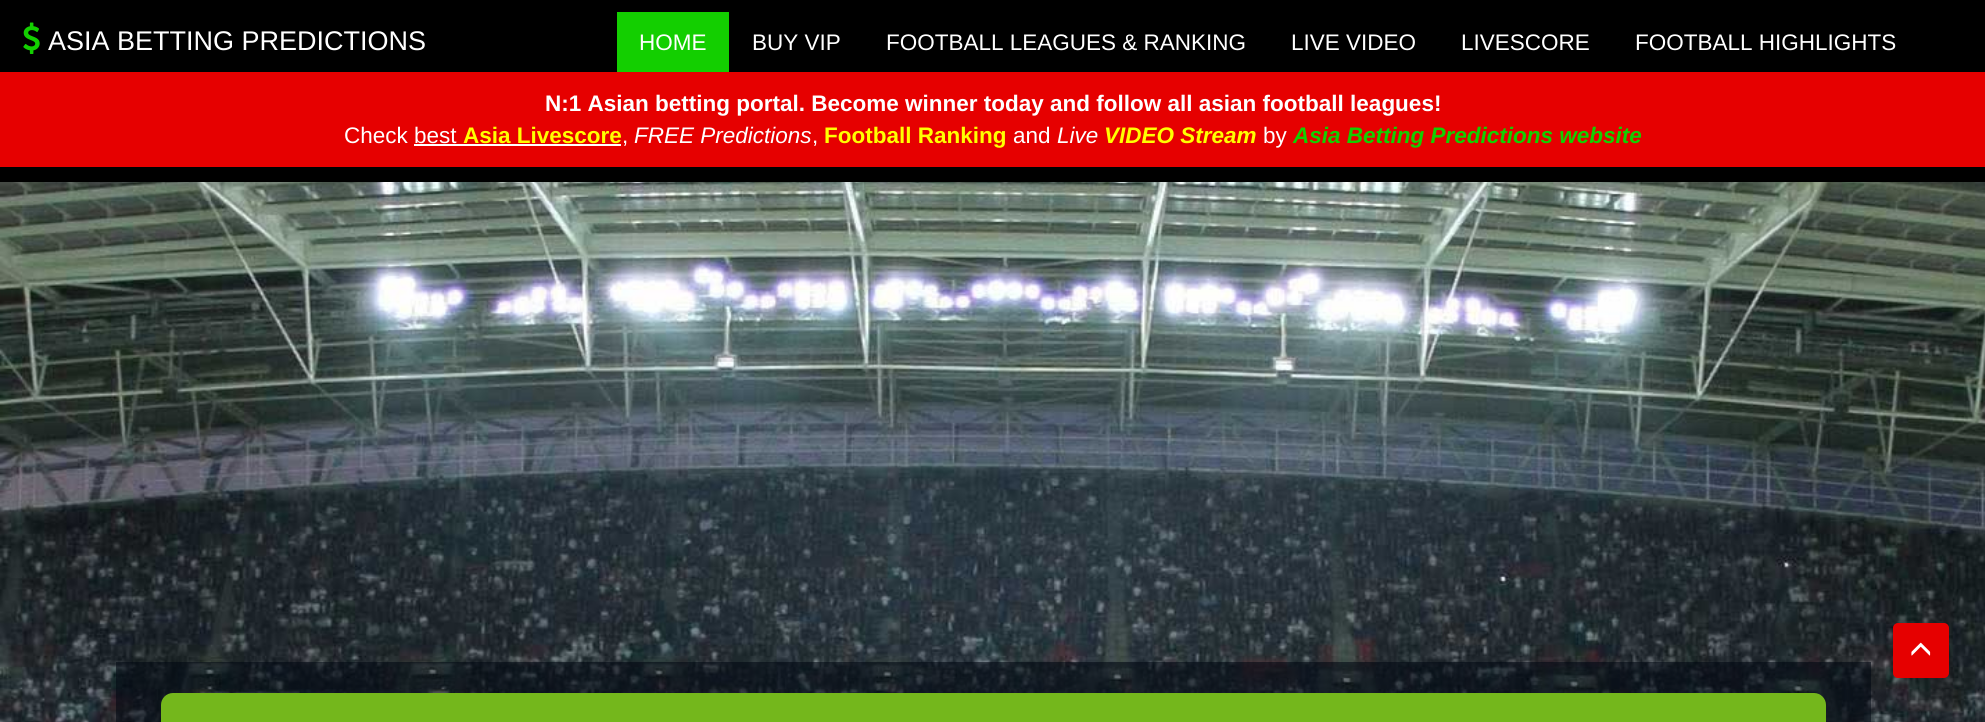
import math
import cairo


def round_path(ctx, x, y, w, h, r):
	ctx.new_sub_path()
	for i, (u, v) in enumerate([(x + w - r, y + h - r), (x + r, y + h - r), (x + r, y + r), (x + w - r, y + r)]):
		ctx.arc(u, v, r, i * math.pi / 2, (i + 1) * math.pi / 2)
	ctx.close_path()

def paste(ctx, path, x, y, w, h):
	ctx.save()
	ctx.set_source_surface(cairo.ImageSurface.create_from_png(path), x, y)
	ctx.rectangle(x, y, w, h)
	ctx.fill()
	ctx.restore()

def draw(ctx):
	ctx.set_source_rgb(1, 1, 1)
	ctx.paint()
	paste(ctx, 'media/1.png', 0, 182, 1985, 540)
	ctx.set_source_rgb(0, 0, 0)
	ctx.rectangle(0, 0, 1985, 182)
	ctx.fill()
	paste(ctx, 'media/2.png', 23, 22, 17, 32)
	ctx.select_font_face('Liberation Sans')
	ctx.set_font_size(27)
	ctx.set_source_rgb(1, 1, 1)
	ctx.move_to(48, 50)
	ctx.show_text('ASIA BETTING PREDICTIONS')
	ctx.set_source_rgb(0.075, 0.812, 0)
	ctx.rectangle(617, 12, 112, 60)
	ctx.fill()
	ctx.set_font_size(22.5)
	ctx.set_source_rgb(1, 1, 1)
	for x, y, s in [
		(639, 50, 'HOME'),
		(752, 50, 'BUY VIP'),
		(886, 50, 'FOOTBALL LEAGUES & RANKING'),
		(1291, 50, 'LIVE VIDEO'),
		(1461, 50, 'LIVESCORE'),
		(1635, 50, 'FOOTBALL HIGHLIGHTS'),
	]:
		ctx.move_to(x, y)
		ctx.show_text(s)
	ctx.set_source_rgb(0.902, 0, 0)
	ctx.rectangle(0, 72, 1985, 95)
	ctx.fill()
	ctx.select_font_face('Liberation Sans', cairo.FONT_SLANT_NORMAL, cairo.FONT_WEIGHT_BOLD)
	ctx.set_source_rgb(1, 1, 1)
	ctx.move_to(545, 111)
	ctx.show_text('N:1 Asian betting portal. Become winner today and follow all asian football leagues!')
	ctx.select_font_face('Liberation Sans')
	ctx.move_to(344, 143)
	ctx.show_text('Check best')
	ctx.select_font_face('Liberation Sans', cairo.FONT_SLANT_NORMAL, cairo.FONT_WEIGHT_BOLD)
	ctx.set_source_rgb(1, 1, 0)
	ctx.move_to(463, 143)
	ctx.show_text('Asia Livescore')
	ctx.set_source_rgb(1, 1, 1)
	ctx.rectangle(414, 144, 207, 2)
	ctx.fill()
	ctx.select_font_face('Liberation Sans')
	ctx.move_to(622, 143)
	ctx.show_text(',')
	ctx.select_font_face('Liberation Sans', cairo.FONT_SLANT_ITALIC)
	ctx.move_to(634, 143)
	ctx.show_text('FREE Predictions')
	ctx.select_font_face('Liberation Sans')
	ctx.move_to(812, 143)
	ctx.show_text(',')
	ctx.select_font_face('Liberation Sans', cairo.FONT_SLANT_NORMAL, cairo.FONT_WEIGHT_BOLD)
	ctx.set_source_rgb(1, 1, 0)
	ctx.move_to(824, 143)
	ctx.show_text('Football Ranking')
	ctx.select_font_face('Liberation Sans')
	ctx.set_source_rgb(1, 1, 1)
	ctx.move_to(1013, 143)
	ctx.show_text('and')
	ctx.select_font_face('Liberation Sans', cairo.FONT_SLANT_ITALIC)
	ctx.move_to(1057, 143)
	ctx.show_text('Live')
	ctx.select_font_face('Liberation Sans', cairo.FONT_SLANT_ITALIC, cairo.FONT_WEIGHT_BOLD)
	ctx.set_source_rgb(1, 1, 0)
	ctx.move_to(1104, 143)
	ctx.show_text('VIDEO Stream')
	ctx.select_font_face('Liberation Sans')
	ctx.set_source_rgb(1, 1, 1)
	ctx.move_to(1263, 143)
	ctx.show_text('by')
	ctx.select_font_face('Liberation Sans', cairo.FONT_SLANT_ITALIC, cairo.FONT_WEIGHT_BOLD)
	ctx.set_source_rgb(0.075, 0.812, 0)
	ctx.move_to(1293, 143)
	ctx.show_text('Asia Betting Predictions website')
	ctx.set_source_rgb(0.902, 0, 0)
	round_path(ctx, 1894, 624, 54, 53, 4)
	ctx.fill_preserve()
	ctx.stroke()
	paste(ctx, 'media/3.png', 1911, 642, 20, 14)
	ctx.set_source_rgba(0, 0.027, 0.071, 0.58)
	ctx.rectangle(116, 662, 1755, 60)
	ctx.fill()
	ctx.set_source_rgb(0.455, 0.718, 0.11)
	round_path(ctx, 161, 693, 1665, 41, 12)
	ctx.fill()


surface = cairo.ImageSurface(cairo.FORMAT_RGB24, 1985, 722)
ctx = cairo.Context(surface)
options = cairo.FontOptions()
options.set_hint_metrics(cairo.HINT_METRICS_OFF)
options.set_hint_style(cairo.HINT_STYLE_NONE)
ctx.set_font_options(options)
ctx.set_miter_limit(4)
draw(ctx)
surface.write_to_png('image.png')
